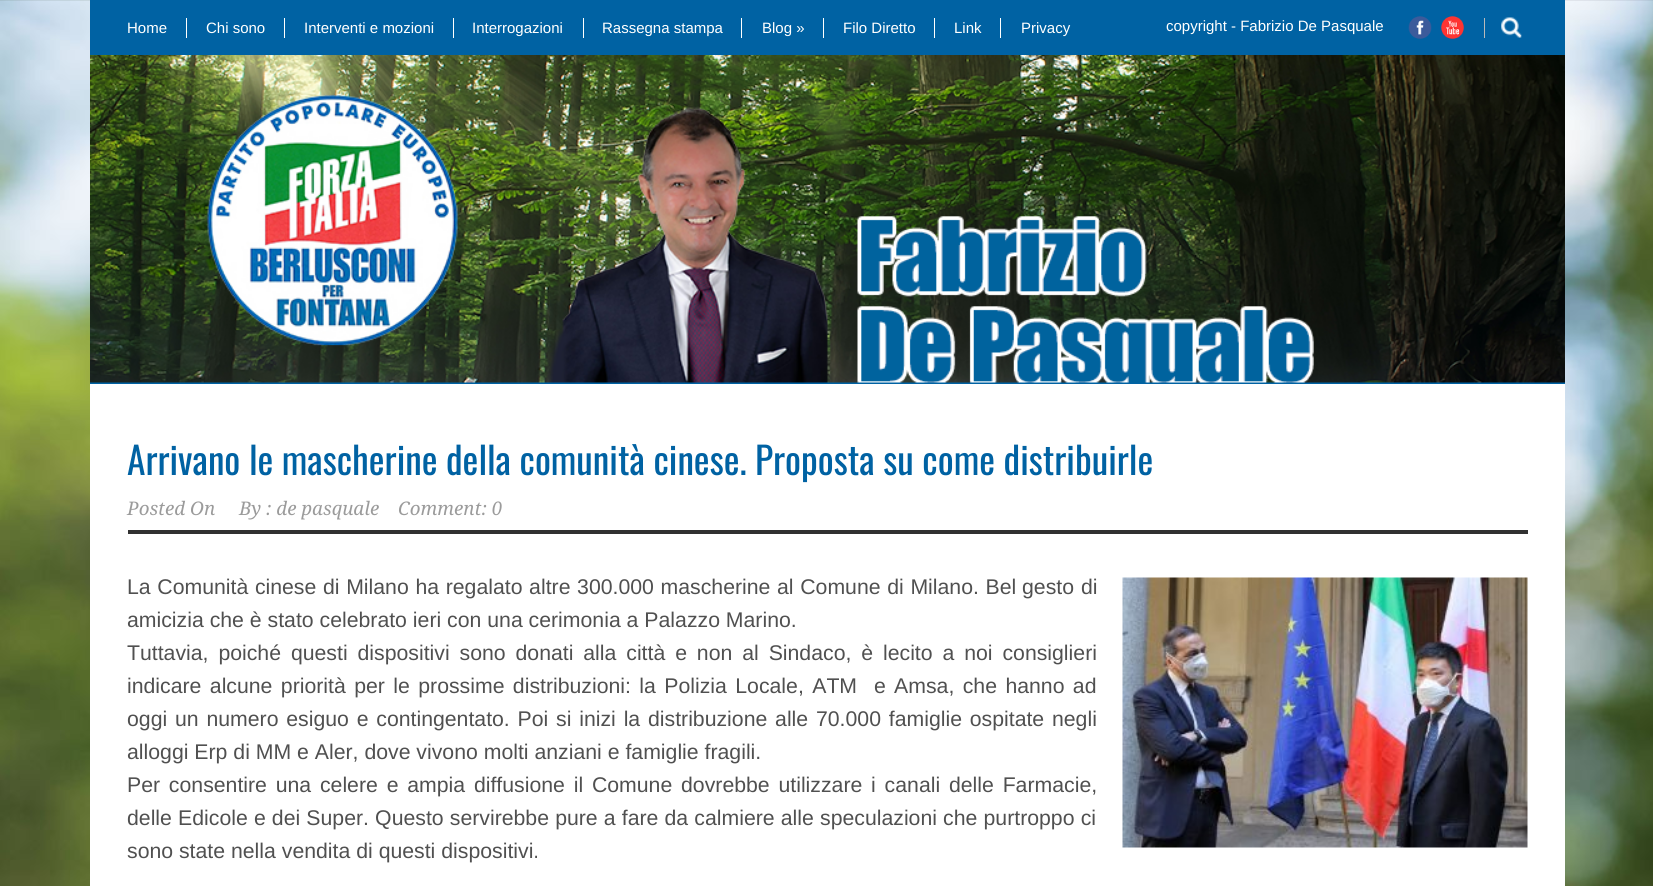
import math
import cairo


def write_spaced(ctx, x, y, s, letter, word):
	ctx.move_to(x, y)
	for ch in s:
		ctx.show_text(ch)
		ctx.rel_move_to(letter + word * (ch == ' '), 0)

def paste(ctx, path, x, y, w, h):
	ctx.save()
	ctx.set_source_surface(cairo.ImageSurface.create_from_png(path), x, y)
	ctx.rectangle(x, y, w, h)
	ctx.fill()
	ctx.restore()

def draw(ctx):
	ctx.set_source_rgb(1, 1, 1)
	ctx.paint()
	paste(ctx, 'media/1.png', 0, 0, 1653, 886)
	ctx.set_source_rgb(0, 0.384, 0.639)
	ctx.rectangle(90, 0, 1475, 55)
	ctx.fill()
	ctx.select_font_face('Liberation Sans')
	ctx.set_font_size(15)
	ctx.set_source_rgb(1, 1, 1)
	ctx.move_to(127, 33)
	ctx.show_text('Home')
	ctx.rectangle(186, 18, 1, 20)
	ctx.fill()
	ctx.move_to(206, 33)
	ctx.show_text('Chi sono')
	ctx.rectangle(284, 18, 1, 20)
	ctx.fill()
	ctx.move_to(304, 33)
	ctx.show_text('Interventi e mozioni')
	ctx.rectangle(453, 18, 1, 20)
	ctx.fill()
	ctx.move_to(472, 33)
	ctx.show_text('Interrogazioni')
	ctx.rectangle(583, 18, 1, 20)
	ctx.fill()
	ctx.move_to(602, 33)
	ctx.show_text('Rassegna stampa')
	ctx.rectangle(741, 18, 1, 20)
	ctx.fill()
	ctx.move_to(762, 33)
	ctx.show_text('Blog »')
	ctx.rectangle(823, 18, 1, 20)
	ctx.fill()
	ctx.move_to(843, 33)
	ctx.show_text('Filo Diretto')
	ctx.rectangle(934, 18, 1, 20)
	ctx.fill()
	ctx.move_to(954, 33)
	ctx.show_text('Link')
	ctx.rectangle(1000, 18, 1, 20)
	ctx.fill()
	ctx.move_to(1021, 33)
	ctx.show_text('Privacy')
	ctx.move_to(1166, 31)
	ctx.show_text('copyright - Fabrizio De Pasquale')
	paste(ctx, 'media/2.png', 1408, 16, 24, 23)
	paste(ctx, 'media/3.png', 1441, 16, 23, 23)
	paste(ctx, 'media/4.png', 1501, 17, 21, 21)
	ctx.set_source_rgb(0.729, 0.729, 0.729)
	ctx.rectangle(1484, 18, 1, 20)
	ctx.fill()
	ctx.set_source_rgb(0, 0.384, 0.639)
	ctx.rectangle(90, 382, 1475, 2)
	ctx.fill()
	paste(ctx, 'media/5.png', 90, 55, 1475, 328)
	ctx.set_source_rgb(1, 1, 1)
	ctx.rectangle(90, 384, 1475, 502)
	ctx.fill()
	ctx.select_font_face('Oswald')
	ctx.set_font_size(37.5)
	ctx.set_source_rgb(0, 0.384, 0.639)
	ctx.move_to(127, 475)
	ctx.show_text('Arrivano le mascherine della comunità cinese. Proposta su come distribuirle')
	ctx.set_source_rgb(0.192, 0.192, 0.192)
	ctx.rectangle(128, 530, 1400, 4)
	ctx.fill()
	ctx.select_font_face('Droid Serif', cairo.FONT_SLANT_ITALIC)
	ctx.set_font_size(18.75)
	ctx.set_source_rgb(0.608, 0.608, 0.608)
	for x, y, s in [
		(127, 515, 'Posted On'),
		(239, 515, 'By : de pasquale'),
		(398, 515, 'Comment: 0'),
	]:
		ctx.move_to(x, y)
		ctx.show_text(s)
	ctx.select_font_face('Liberation Sans')
	ctx.set_font_size(21.25)
	ctx.set_source_rgb(0.314, 0.314, 0.314)
	write_spaced(ctx, 127, 594, 'La Comunità cinese di Milano ha regalato altre 300.000 mascherine al Comune di Milano. Bel', 0, 0.75)
	write_spaced(ctx, 1022, 594, 'gesto di', 0, 1)
	paste(ctx, 'media/6.png', 1122, 577, 406, 271)
	ctx.move_to(127, 627)
	ctx.show_text('amicizia che è stato celebrato ieri con una cerimonia a Palazzo Marino.')
	write_spaced(ctx, 127, 660, 'Tuttavia, poiché questi dispositivi sono donati alla città e non al Sindaco, è lecito a noi consiglieri', 0, 4)
	write_spaced(ctx, 127, 693, 'indicare alcune priorità per le prossime distribuzioni: la Polizia Locale, ATM  e Amsa, che hanno ad', 0, 2.5)
	write_spaced(ctx, 127, 726, 'oggi un numero esiguo e contingentato. Poi si inizi la distribuzione alle 70.000 famiglie ospitate negli', 0, 1.9)
	ctx.move_to(127, 759)
	ctx.show_text('alloggi Erp di MM e Aler, dove vivono molti anziani e famiglie fragili.')
	write_spaced(ctx, 127, 792, 'Per consentire una celere e ampia diffusione il Comune dovrebbe utilizzare i canali delle Farmacie,', 0, 2.9)
	write_spaced(ctx, 127, 825, 'delle Edicole e dei Super. Questo servirebbe pure a fare da calmiere alle speculazioni che purtroppo ci', 0, 0.25)
	ctx.move_to(127, 858)
	ctx.show_text('sono state nella vendita di questi dispositivi.')


surface = cairo.ImageSurface(cairo.FORMAT_RGB24, 1653, 886)
ctx = cairo.Context(surface)
options = cairo.FontOptions()
options.set_hint_metrics(cairo.HINT_METRICS_OFF)
options.set_hint_style(cairo.HINT_STYLE_NONE)
ctx.set_font_options(options)
ctx.set_miter_limit(4)
draw(ctx)
surface.write_to_png('image.png')
